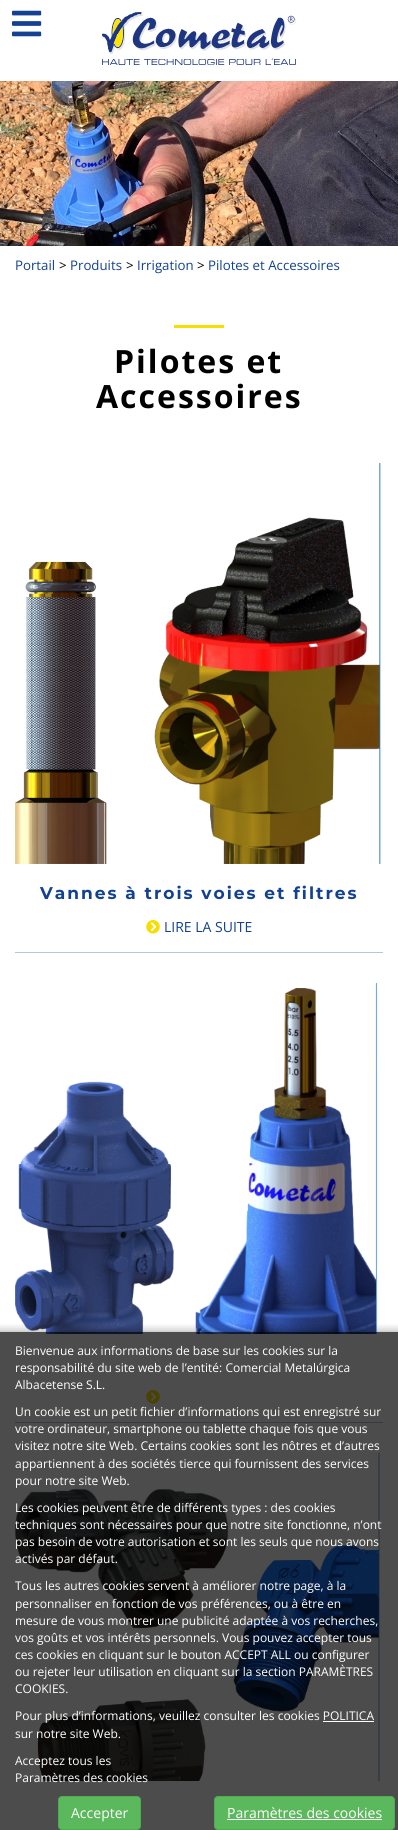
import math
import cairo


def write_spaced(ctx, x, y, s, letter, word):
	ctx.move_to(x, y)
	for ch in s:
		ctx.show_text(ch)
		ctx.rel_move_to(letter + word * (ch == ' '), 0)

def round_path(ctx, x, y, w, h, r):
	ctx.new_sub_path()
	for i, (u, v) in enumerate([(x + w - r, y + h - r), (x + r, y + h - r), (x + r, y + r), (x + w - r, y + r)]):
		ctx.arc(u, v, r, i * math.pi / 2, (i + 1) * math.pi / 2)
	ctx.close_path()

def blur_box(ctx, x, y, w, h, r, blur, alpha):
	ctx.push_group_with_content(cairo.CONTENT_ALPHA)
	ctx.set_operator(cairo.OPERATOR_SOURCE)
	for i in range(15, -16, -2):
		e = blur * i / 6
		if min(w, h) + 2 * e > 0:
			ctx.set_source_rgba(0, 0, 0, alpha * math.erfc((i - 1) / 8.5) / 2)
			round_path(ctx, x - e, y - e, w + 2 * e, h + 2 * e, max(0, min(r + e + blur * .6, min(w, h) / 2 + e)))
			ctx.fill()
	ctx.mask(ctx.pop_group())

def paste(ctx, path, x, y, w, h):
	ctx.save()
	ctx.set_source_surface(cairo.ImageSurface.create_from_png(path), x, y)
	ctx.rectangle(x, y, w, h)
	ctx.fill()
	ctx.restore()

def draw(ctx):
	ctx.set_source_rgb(1, 1, 1)
	ctx.paint()
	paste(ctx, 'media/1.png', 12, 10, 30, 27)
	paste(ctx, 'media/2.png', 102, 12, 194, 53)
	paste(ctx, 'media/3.png', 0, 81, 398, 165)
	ctx.select_font_face('Open Sans')
	ctx.set_font_size(13.25)
	ctx.set_source_rgb(0.078, 0.255, 0.573)
	ctx.move_to(15, 270)
	ctx.show_text('Portail')
	ctx.set_source_rgb(0, 0, 0)
	ctx.move_to(59, 270)
	ctx.show_text('>')
	ctx.set_source_rgb(0.078, 0.255, 0.573)
	ctx.move_to(70, 270)
	ctx.show_text('Produits')
	ctx.set_source_rgb(0, 0, 0)
	ctx.move_to(126, 270)
	ctx.show_text('>')
	ctx.set_source_rgb(0.078, 0.255, 0.573)
	ctx.move_to(137, 270)
	ctx.show_text('Irrigation')
	ctx.set_source_rgb(0, 0, 0)
	ctx.move_to(197, 270)
	ctx.show_text('>')
	ctx.set_source_rgb(0.078, 0.255, 0.573)
	ctx.move_to(208, 270)
	ctx.show_text('Pilotes et Accessoires')
	ctx.set_source_rgb(0.976, 0.863, 0.004)
	ctx.rectangle(174, 325, 50, 3)
	ctx.fill()
	ctx.select_font_face('Open Sans', cairo.FONT_SLANT_NORMAL, cairo.FONT_WEIGHT_BOLD)
	ctx.set_font_size(32)
	ctx.set_source_rgb(0, 0, 0)
	write_spaced(ctx, 114, 373, 'Pilotes et', 2, 0)
	write_spaced(ctx, 96, 408, 'Accessoires', 2, 0)
	ctx.set_source_rgb(0.714, 0.776, 0.886)
	ctx.rectangle(15, 952, 368, 1)
	ctx.fill()
	paste(ctx, 'media/4.png', 15, 463, 366, 401)
	ctx.select_font_face('Montserrat', cairo.FONT_SLANT_NORMAL, cairo.FONT_WEIGHT_BOLD)
	ctx.set_font_size(17)
	ctx.set_source_rgb(0.078, 0.255, 0.573)
	write_spaced(ctx, 40, 899, 'Vannes à trois voies et filtres', 2, 0)
	paste(ctx, 'media/5.png', 146, 920, 14, 14)
	ctx.select_font_face('Open Sans')
	ctx.set_font_size(14)
	ctx.move_to(164, 932)
	ctx.show_text('LIRE LA SUITE')
	ctx.set_source_rgb(0.714, 0.776, 0.886)
	ctx.rectangle(15, 1422, 368, 1)
	ctx.fill()
	paste(ctx, 'media/6.png', 15, 983, 363, 351)
	paste(ctx, 'media/5.png', 146, 1390, 14, 14)
	paste(ctx, 'media/7.png', 15, 1453, 365, 328)
	ctx.save()
	ctx.rectangle(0, 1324, 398, 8)
	ctx.clip()
	ctx.set_source_rgb(0, 0, 0)
	blur_box(ctx, -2, 1332, 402, 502, 0, 5, 0.4)
	ctx.restore()
	ctx.set_source_rgba(0, 0, 0, 0.7)
	ctx.rectangle(0, 1332, 398, 498)
	ctx.fill()
	ctx.set_font_size(12)
	ctx.set_source_rgb(1, 1, 1)
	for x, y, s in [
		(15, 1355, 'Bienvenue aux informations de base sur les cookies sur la'),
		(15, 1372, 'responsabilité du site web de l’entité: Comercial Metalúrgica'),
		(15, 1389, 'Albacetense S.L.'),
		(15, 1416, 'Un cookie est un petit fichier d’informations qui est enregistré sur'),
		(15, 1433, 'votre ordinateur, smartphone ou tablette chaque fois que vous'),
		(15, 1450, 'visitez notre site Web. Certains cookies sont les nôtres et d’autres'),
		(15, 1468, 'appartiennent à des sociétés tierce qui fournissent des services'),
		(15, 1485, 'pour notre site Web.'),
		(15, 1512, 'Les cookies peuvent être de différents types : des cookies'),
		(15, 1529, 'techniques sont nécessaires pour que notre site fonctionne, n’ont'),
		(15, 1546, 'pas besoin de votre autorisation et sont les seuls que nous avons'),
		(15, 1563, 'activés par défaut.'),
		(15, 1590, 'Tous les autres cookies servent à améliorer notre page, à la'),
		(15, 1608, 'personnaliser en fonction de vos préférences, ou à être en'),
		(15, 1625, 'mesure de vous montrer une publicité adaptée à vos recherches,'),
		(15, 1642, 'vos goûts et vos intérêts personnels. Vous pouvez accepter tous'),
		(15, 1659, 'ces cookies en cliquant sur le bouton ACCEPT ALL ou configurer'),
		(15, 1676, 'ou rejeter leur utilisation en cliquant sur la section PARAMÈTRES'),
		(15, 1693, 'COOKIES.'),
		(15, 1720, 'Pour plus d’informations, veuillez consulter les cookies POLITICA'),
	]:
		ctx.move_to(x, y)
		ctx.show_text(s)
	ctx.rectangle(323, 1721, 51, 1)
	ctx.fill()
	for x, y, s in [
		(15, 1738, 'sur notre site Web.'),
		(15, 1765, 'Acceptez tous les'),
		(15, 1782, 'Paramètres des cookies'),
	]:
		ctx.move_to(x, y)
		ctx.show_text(s)
	ctx.set_source_rgb(0.361, 0.722, 0.361)
	round_path(ctx, 58.5, 1796.5, 82, 33, 3.5)
	ctx.fill_preserve()
	ctx.set_source_rgb(0.298, 0.682, 0.298)
	ctx.set_line_width(1)
	ctx.stroke()
	ctx.set_font_size(14)
	ctx.set_source_rgb(1, 1, 1)
	ctx.move_to(71, 1818)
	ctx.show_text('Accepter')
	ctx.set_source_rgb(0.361, 0.722, 0.361)
	round_path(ctx, 214.5, 1796.5, 180, 33, 3.5)
	ctx.fill_preserve()
	ctx.set_source_rgb(0.298, 0.682, 0.298)
	ctx.stroke()
	ctx.set_source_rgb(1, 1, 1)
	ctx.move_to(227, 1818)
	ctx.show_text('Paramètres des cookies')
	ctx.rectangle(227, 1819, 155, 1)
	ctx.fill()


surface = cairo.ImageSurface(cairo.FORMAT_RGB24, 398, 1830)
ctx = cairo.Context(surface)
options = cairo.FontOptions()
options.set_hint_metrics(cairo.HINT_METRICS_OFF)
options.set_hint_style(cairo.HINT_STYLE_NONE)
ctx.set_font_options(options)
ctx.set_miter_limit(4)
draw(ctx)
surface.write_to_png('image.png')
